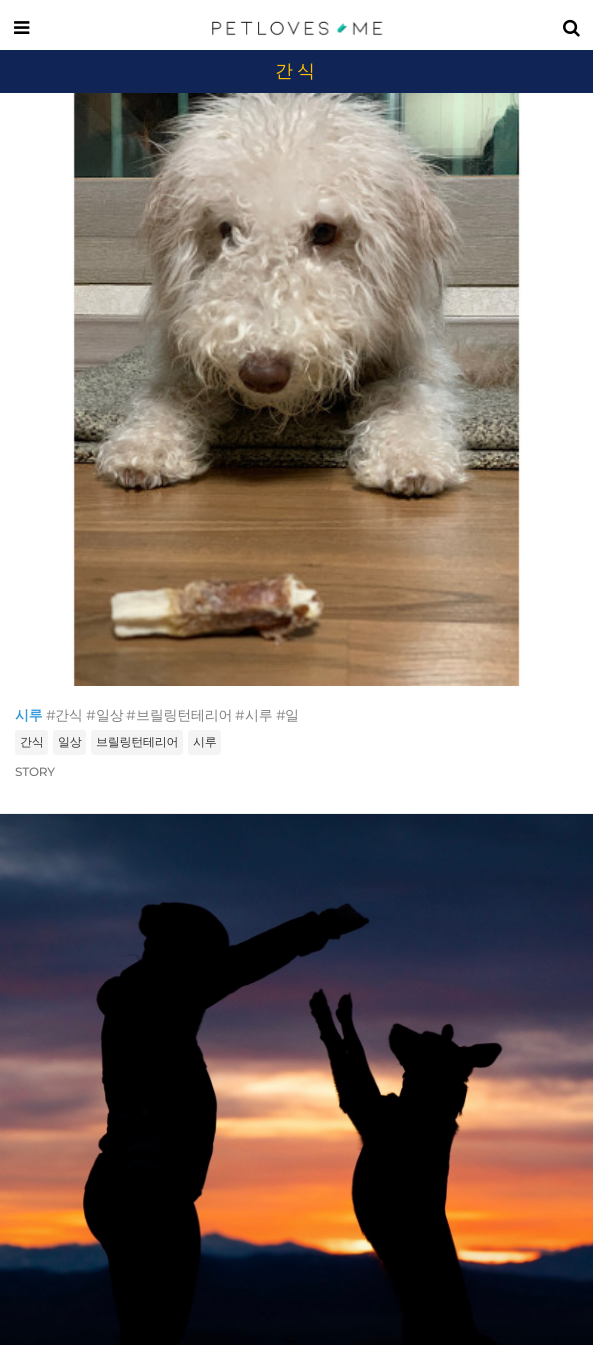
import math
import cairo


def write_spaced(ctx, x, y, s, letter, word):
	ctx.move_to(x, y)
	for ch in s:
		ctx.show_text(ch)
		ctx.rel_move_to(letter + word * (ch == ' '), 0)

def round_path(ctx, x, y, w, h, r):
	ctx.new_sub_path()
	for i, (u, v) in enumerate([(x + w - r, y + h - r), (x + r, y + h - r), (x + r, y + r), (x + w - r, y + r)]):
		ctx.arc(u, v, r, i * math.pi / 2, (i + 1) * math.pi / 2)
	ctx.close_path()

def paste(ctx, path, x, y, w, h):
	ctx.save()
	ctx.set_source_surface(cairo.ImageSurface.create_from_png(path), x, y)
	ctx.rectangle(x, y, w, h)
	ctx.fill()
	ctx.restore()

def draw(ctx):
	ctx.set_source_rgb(1, 1, 1)
	ctx.paint()
	paste(ctx, 'media/1.png', 14, 21, 16, 13)
	paste(ctx, 'media/2.png', 212, 21, 171, 15)
	paste(ctx, 'media/3.png', 563, 19, 17, 18)
	ctx.set_source_rgb(0.063, 0.141, 0.333)
	ctx.rectangle(0, 50, 593, 43)
	ctx.fill()
	ctx.select_font_face('WenQuanYi Zen Hei Medium')
	ctx.set_font_size(18)
	ctx.set_source_rgb(1, 0.753, 0.004)
	write_spaced(ctx, 275, 77, '간식', 4, 0)
	ctx.set_source_rgb(0.933, 0.933, 0.933)
	ctx.rectangle(0, 813, 593, 1)
	ctx.fill()
	paste(ctx, 'media/4.png', 71, 93, 451, 593)
	ctx.select_font_face('WenQuanYi Zen Hei', cairo.FONT_SLANT_NORMAL, cairo.FONT_WEIGHT_BOLD)
	ctx.set_font_size(14)
	ctx.set_source_rgb(0.204, 0.596, 0.859)
	write_spaced(ctx, 15, 720, '시루', -0.25, 0)
	ctx.select_font_face('Montserrat Thin')
	ctx.set_source_rgb(0.502, 0.502, 0.502)
	write_spaced(ctx, 46, 720, '#', -0.25, 0)
	ctx.select_font_face('WenQuanYi Zen Hei Medium')
	write_spaced(ctx, 55, 720, '간식', -0.25, 0)
	ctx.select_font_face('Montserrat Thin')
	write_spaced(ctx, 86, 720, '#', -0.25, 0)
	ctx.select_font_face('WenQuanYi Zen Hei Medium')
	write_spaced(ctx, 96, 720, '일상', -0.25, 0)
	ctx.select_font_face('Montserrat Thin')
	write_spaced(ctx, 126, 720, '#', -0.25, 0)
	ctx.select_font_face('WenQuanYi Zen Hei Medium')
	write_spaced(ctx, 136, 720, '브릴링턴테리어', -0.25, 0)
	ctx.select_font_face('Montserrat Thin')
	write_spaced(ctx, 235, 720, '#', -0.25, 0)
	ctx.select_font_face('WenQuanYi Zen Hei Medium')
	write_spaced(ctx, 245, 720, '시루', -0.25, 0)
	ctx.select_font_face('Montserrat Thin')
	write_spaced(ctx, 276, 720, '#', -0.25, 0)
	ctx.select_font_face('WenQuanYi Zen Hei Medium')
	write_spaced(ctx, 285, 720, '일', -0.25, 0)
	ctx.set_source_rgb(0.957, 0.957, 0.957)
	round_path(ctx, 15, 730, 33, 25, 3)
	ctx.fill()
	ctx.set_font_size(12)
	ctx.set_source_rgb(0.2, 0.2, 0.2)
	write_spaced(ctx, 20, 746, '간식', -0.25, 0)
	ctx.set_source_rgb(0.957, 0.957, 0.957)
	round_path(ctx, 53, 730, 33, 25, 3)
	ctx.fill()
	ctx.set_source_rgb(0.2, 0.2, 0.2)
	write_spaced(ctx, 58, 746, '일상', -0.25, 0)
	ctx.set_source_rgb(0.957, 0.957, 0.957)
	round_path(ctx, 91, 730, 92, 25, 3)
	ctx.fill()
	ctx.set_source_rgb(0.2, 0.2, 0.2)
	write_spaced(ctx, 96, 746, '브릴링턴테리어', -0.25, 0)
	ctx.set_source_rgb(0.957, 0.957, 0.957)
	round_path(ctx, 188, 730, 33, 25, 3)
	ctx.fill()
	ctx.set_source_rgb(0.2, 0.2, 0.2)
	write_spaced(ctx, 193, 746, '시루', -0.25, 0)
	ctx.select_font_face('Montserrat Medium')
	ctx.set_source_rgb(0.467, 0.467, 0.467)
	write_spaced(ctx, 15, 776, 'STORY', -0.25, 0)
	paste(ctx, 'media/5.png', 0, 814, 593, 531)


surface = cairo.ImageSurface(cairo.FORMAT_RGB24, 593, 1345)
ctx = cairo.Context(surface)
options = cairo.FontOptions()
options.set_hint_metrics(cairo.HINT_METRICS_OFF)
options.set_hint_style(cairo.HINT_STYLE_NONE)
ctx.set_font_options(options)
ctx.set_miter_limit(4)
draw(ctx)
surface.write_to_png('image.png')
